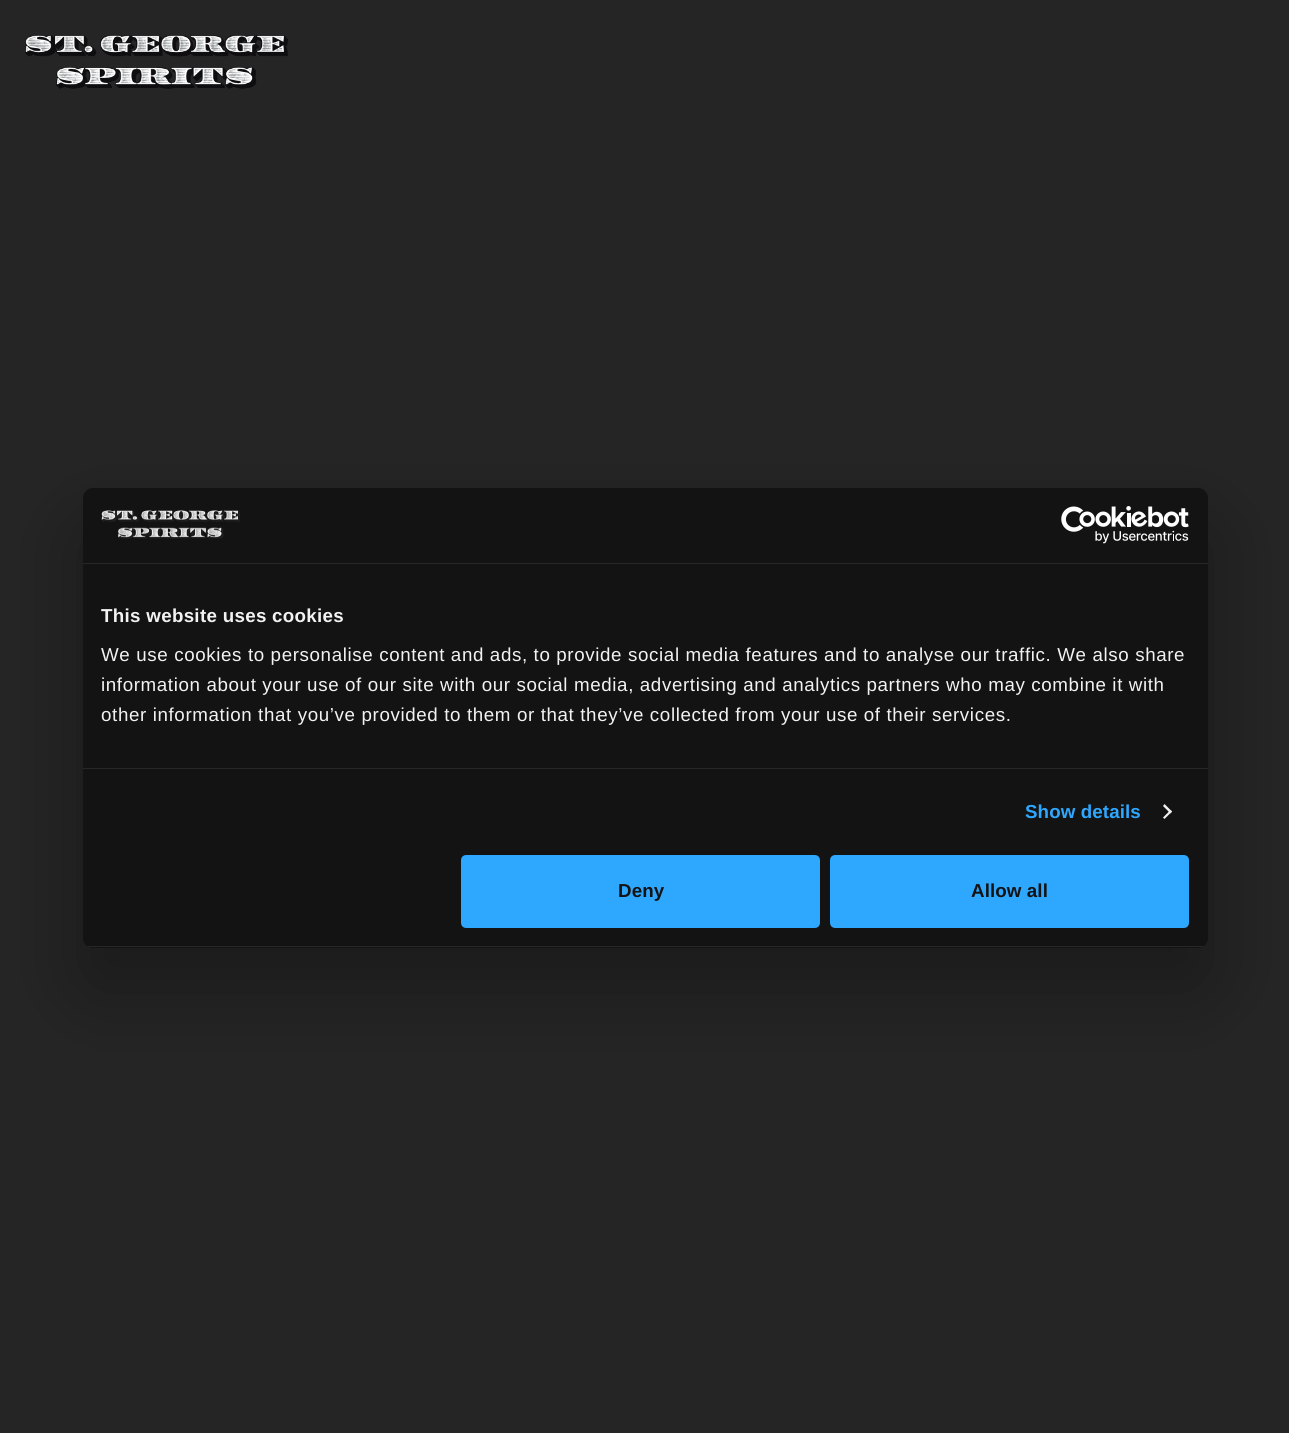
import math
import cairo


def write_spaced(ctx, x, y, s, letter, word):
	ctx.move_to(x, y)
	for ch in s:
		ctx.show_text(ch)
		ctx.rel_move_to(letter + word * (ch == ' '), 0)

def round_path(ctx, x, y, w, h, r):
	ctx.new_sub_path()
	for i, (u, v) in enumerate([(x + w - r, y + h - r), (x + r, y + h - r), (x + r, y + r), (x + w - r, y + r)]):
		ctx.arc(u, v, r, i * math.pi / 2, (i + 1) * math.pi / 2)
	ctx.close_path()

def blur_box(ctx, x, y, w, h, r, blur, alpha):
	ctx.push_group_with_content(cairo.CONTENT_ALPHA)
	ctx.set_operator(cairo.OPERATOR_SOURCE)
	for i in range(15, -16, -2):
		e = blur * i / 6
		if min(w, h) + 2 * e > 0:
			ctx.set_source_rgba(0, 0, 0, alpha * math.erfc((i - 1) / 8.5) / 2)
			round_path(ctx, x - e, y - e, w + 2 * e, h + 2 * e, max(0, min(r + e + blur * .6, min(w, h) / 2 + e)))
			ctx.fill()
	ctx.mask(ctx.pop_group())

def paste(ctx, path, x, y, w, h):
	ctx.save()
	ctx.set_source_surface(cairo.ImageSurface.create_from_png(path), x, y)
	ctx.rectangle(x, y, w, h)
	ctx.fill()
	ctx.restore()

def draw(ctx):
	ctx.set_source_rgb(0.145, 0.145, 0.145)
	ctx.paint()
	paste(ctx, 'media/1.png', 25, 35, 263, 54)
	ctx.set_source_rgb(0, 0, 0)
	blur_box(ctx, 83, 528, 1125, 460, 10, 42.5, 0.3)
	ctx.set_source_rgb(0.078, 0.078, 0.078)
	round_path(ctx, 83, 488, 1125, 460, 10)
	ctx.fill()
	ctx.set_source_rgb(0.153, 0.153, 0.153)
	ctx.rectangle(83, 563, 1125, 1)
	ctx.fill()
	paste(ctx, 'media/2.png', 101, 510, 139, 29)
	paste(ctx, 'media/3.png', 1061, 506, 128, 38)
	ctx.rectangle(83, 768, 1125, 1)
	ctx.fill()
	ctx.select_font_face('Liberation Sans', cairo.FONT_SLANT_NORMAL, cairo.FONT_WEIGHT_BOLD)
	ctx.set_font_size(18.75)
	ctx.set_source_rgb(0.949, 0.949, 0.949)
	write_spaced(ctx, 101, 622, 'This website uses cookies', 0.3, 0)
	ctx.select_font_face('Liberation Sans')
	for x, y, s in [
		(101, 661, 'We use cookies to personalise content and ads, to provide social media features and to analyse our traffic. We also share'),
		(101, 691, 'information about your use of our site with our social media, advertising and analytics partners who may combine it with'),
		(101, 721, 'other information that you’ve provided to them or that they’ve collected from your use of their services.'),
	]:
		write_spaced(ctx, x, y, s, 0.62, 0)
	ctx.select_font_face('Liberation Sans', cairo.FONT_SLANT_NORMAL, cairo.FONT_WEIGHT_BOLD)
	ctx.set_source_rgb(0.18, 0.655, 1)
	write_spaced(ctx, 1025, 818, 'Show details', 0.1, 0)
	ctx.set_source_rgb(0.949, 0.949, 0.949)
	ctx.new_path()
	ctx.move_to(1164.5, 804)
	ctx.line_to(1172, 811.5)
	ctx.line_to(1170.5, 813.5)
	ctx.line_to(1163, 806)
	ctx.close_path()
	ctx.fill()
	ctx.new_path()
	ctx.move_to(1170.5, 810)
	ctx.line_to(1172, 811.5)
	ctx.line_to(1164.5, 819)
	ctx.line_to(1163, 817.5)
	ctx.close_path()
	ctx.fill()
	ctx.save()
	round_path(ctx, 83, 488, 1125, 460, 10)
	ctx.clip()
	ctx.set_source_rgb(0.153, 0.153, 0.153)
	ctx.rectangle(83, 946, 1125, 1)
	ctx.fill()
	ctx.restore()
	ctx.set_source_rgb(0.18, 0.655, 1)
	round_path(ctx, 462.5, 856.5, 356, 70, 3.5)
	ctx.fill_preserve()
	ctx.set_line_width(3)
	ctx.stroke()
	ctx.set_source_rgb(0.078, 0.078, 0.078)
	write_spaced(ctx, 618, 897, 'Deny', 0.1, 0)
	ctx.set_source_rgb(0.18, 0.655, 1)
	round_path(ctx, 831.5, 856.5, 356, 70, 3.5)
	ctx.fill_preserve()
	ctx.stroke()
	ctx.set_source_rgb(0.078, 0.078, 0.078)
	write_spaced(ctx, 971, 897, 'Allow all', 0.1, 0)


surface = cairo.ImageSurface(cairo.FORMAT_RGB24, 1289, 1433)
ctx = cairo.Context(surface)
options = cairo.FontOptions()
options.set_hint_metrics(cairo.HINT_METRICS_OFF)
options.set_hint_style(cairo.HINT_STYLE_NONE)
ctx.set_font_options(options)
ctx.set_miter_limit(4)
draw(ctx)
surface.write_to_png('image.png')
